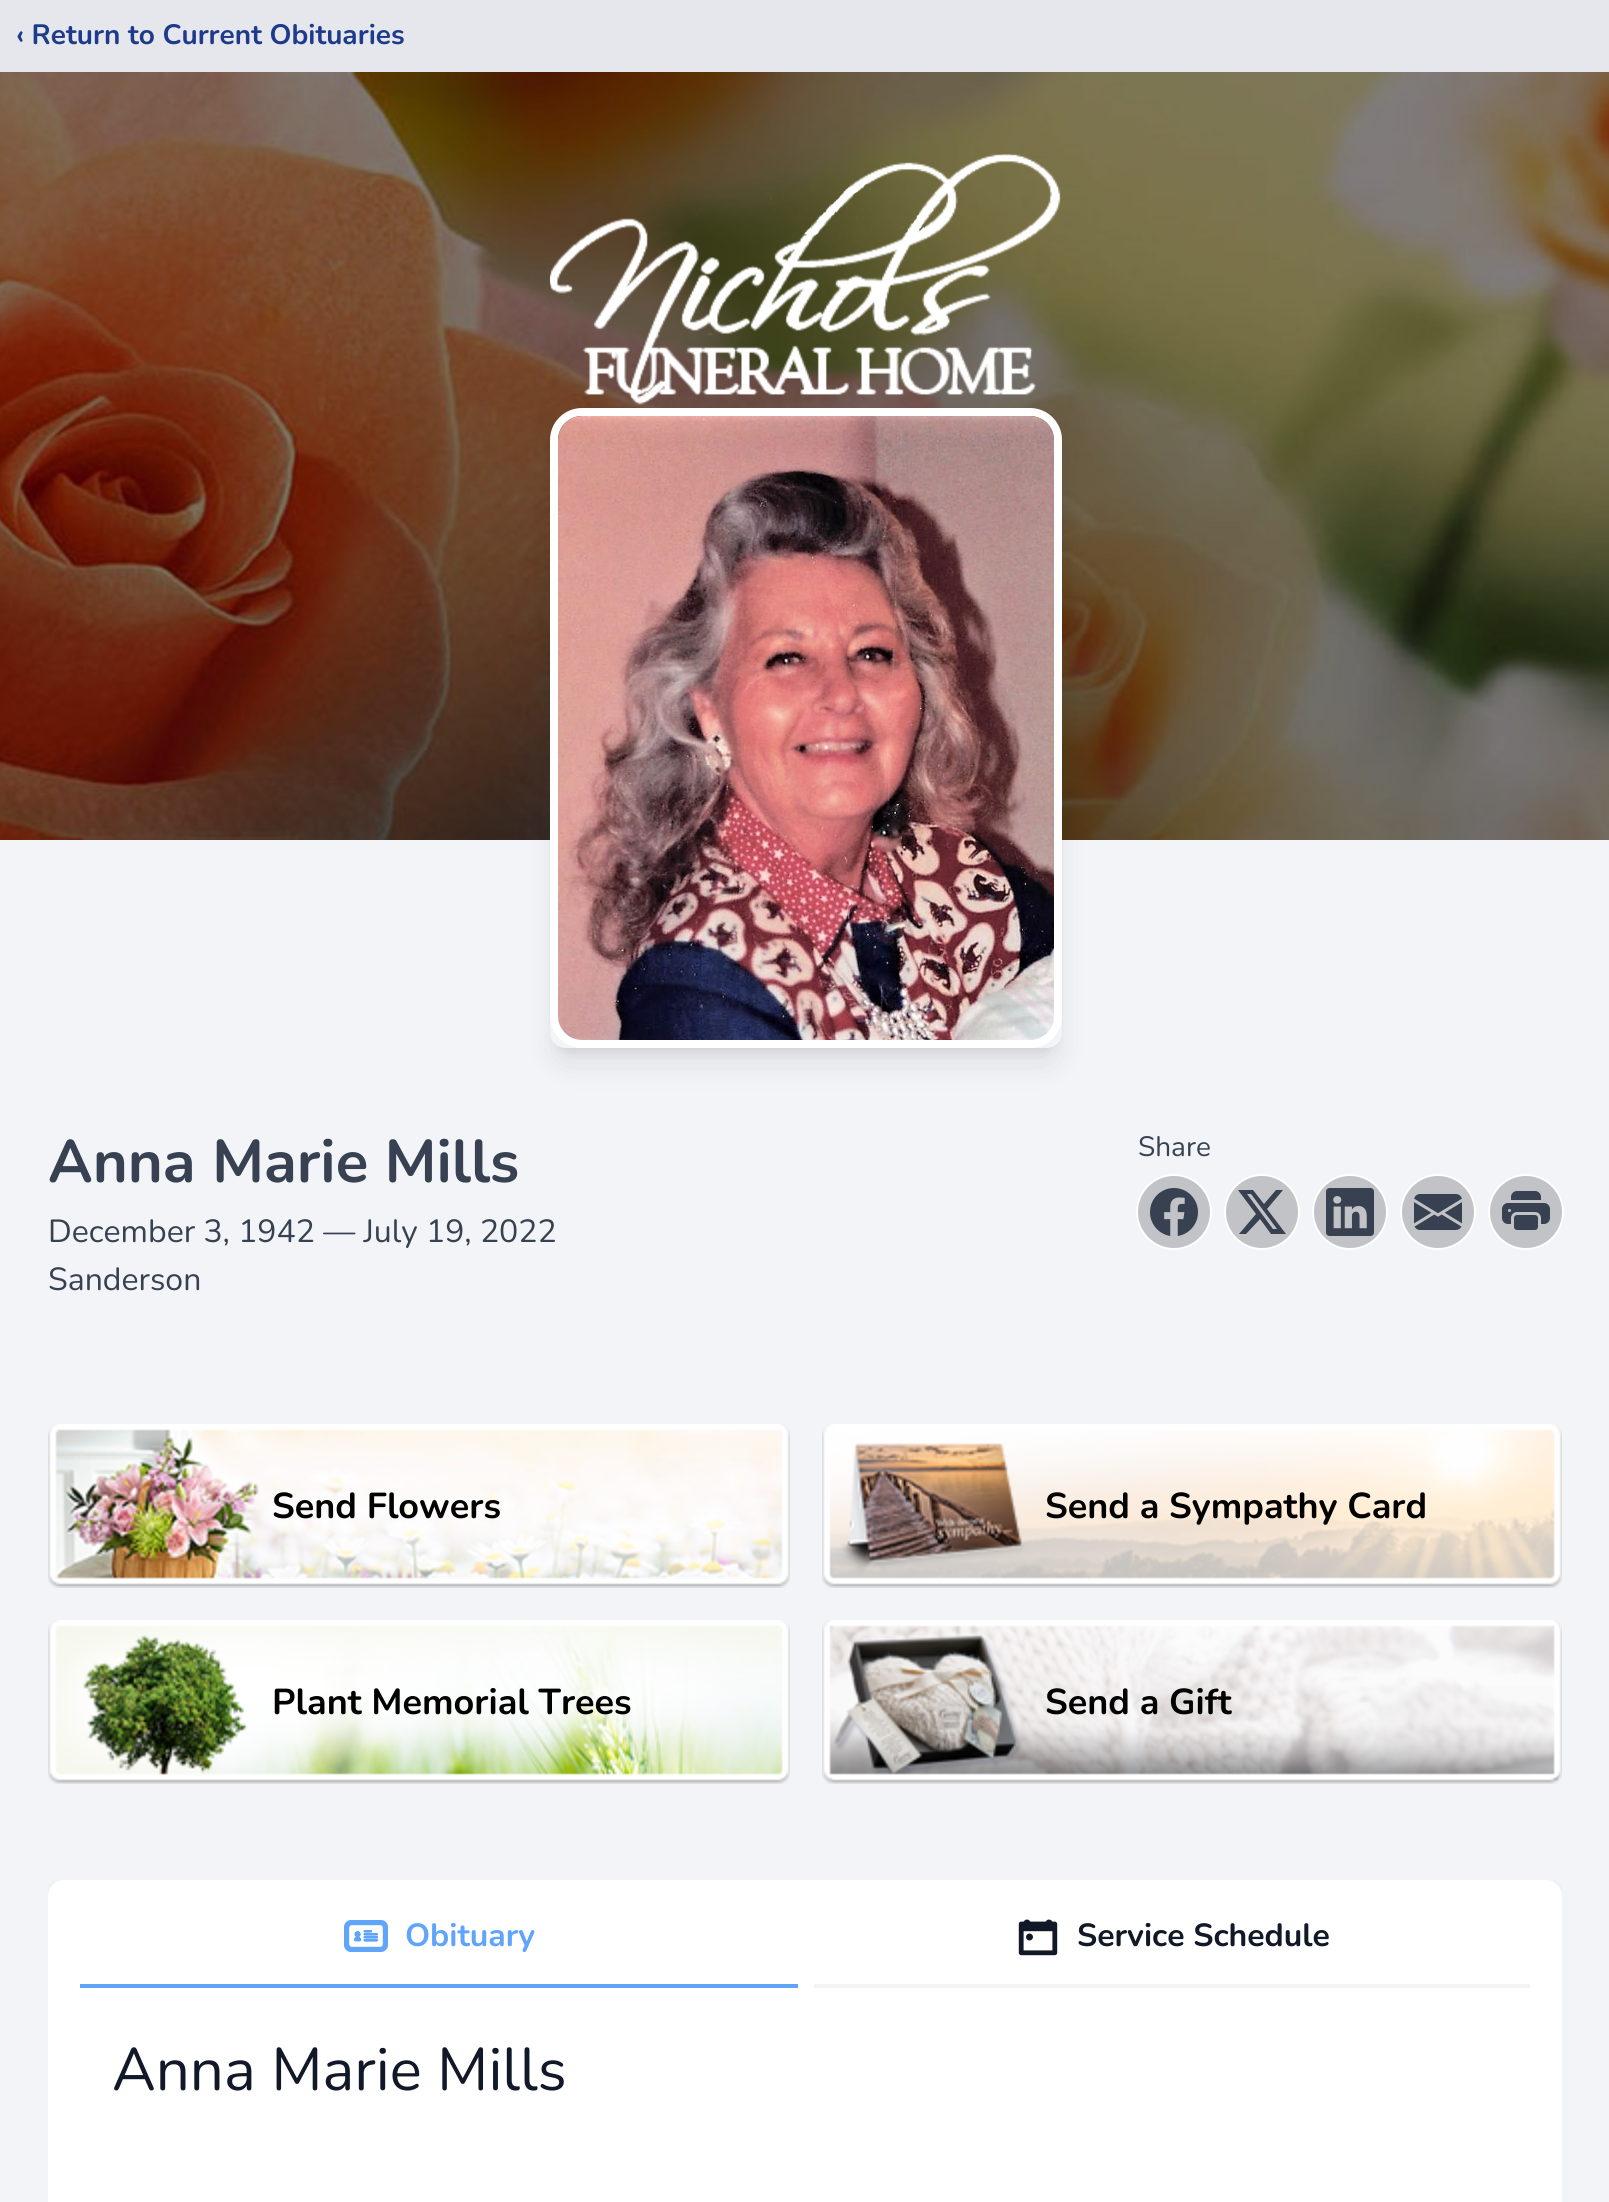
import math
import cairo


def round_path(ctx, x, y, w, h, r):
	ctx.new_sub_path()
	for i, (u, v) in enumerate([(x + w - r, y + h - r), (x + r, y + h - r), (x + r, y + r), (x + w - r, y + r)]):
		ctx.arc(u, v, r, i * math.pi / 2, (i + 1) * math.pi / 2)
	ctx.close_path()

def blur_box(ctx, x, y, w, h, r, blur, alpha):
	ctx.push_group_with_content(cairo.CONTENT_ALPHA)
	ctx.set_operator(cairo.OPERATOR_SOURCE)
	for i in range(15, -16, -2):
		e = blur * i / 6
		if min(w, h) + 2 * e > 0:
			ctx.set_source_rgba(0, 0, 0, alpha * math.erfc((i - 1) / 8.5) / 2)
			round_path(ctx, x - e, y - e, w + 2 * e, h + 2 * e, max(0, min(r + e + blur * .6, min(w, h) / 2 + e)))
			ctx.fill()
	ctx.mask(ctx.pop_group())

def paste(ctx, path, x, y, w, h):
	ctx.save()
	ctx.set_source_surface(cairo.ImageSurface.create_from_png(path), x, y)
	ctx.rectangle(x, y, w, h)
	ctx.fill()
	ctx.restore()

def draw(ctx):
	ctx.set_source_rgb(0.953, 0.957, 0.965)
	ctx.paint()
	ctx.set_source_rgb(0.898, 0.906, 0.922)
	ctx.rectangle(0, 0, 1609, 72)
	ctx.fill()
	ctx.select_font_face('Nunito', cairo.FONT_SLANT_NORMAL, cairo.FONT_WEIGHT_BOLD)
	ctx.set_font_size(28)
	ctx.set_source_rgb(0.118, 0.227, 0.541)
	ctx.move_to(16, 44)
	ctx.show_text('‹ Return to Current Obituaries')
	paste(ctx, 'media/1.png', 0, 72, 1609, 768)
	paste(ctx, 'media/2.png', 550, 154, 511, 251)
	ctx.save()
	ctx.set_fill_rule(cairo.FILL_RULE_EVEN_ODD)
	ctx.new_path()
	ctx.move_to(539, 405)
	ctx.line_to(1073, 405)
	ctx.line_to(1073, 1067)
	ctx.line_to(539, 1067)
	ctx.close_path()
	ctx.move_to(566, 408)
	ctx.line_to(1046, 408)
	ctx.curve_to(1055, 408, 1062, 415, 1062, 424)
	ctx.line_to(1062, 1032)
	ctx.curve_to(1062, 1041, 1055, 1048, 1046, 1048)
	ctx.line_to(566, 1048)
	ctx.curve_to(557, 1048, 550, 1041, 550, 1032)
	ctx.line_to(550, 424)
	ctx.curve_to(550, 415, 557, 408, 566, 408)
	ctx.close_path()
	ctx.clip()
	ctx.set_source_rgb(0, 0, 0)
	blur_box(ctx, 558, 424, 496, 624, 8, 6, 0.1)
	ctx.restore()
	ctx.save()
	ctx.set_fill_rule(cairo.FILL_RULE_EVEN_ODD)
	ctx.new_path()
	ctx.move_to(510, 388)
	ctx.line_to(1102, 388)
	ctx.line_to(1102, 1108)
	ctx.line_to(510, 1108)
	ctx.close_path()
	ctx.move_to(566, 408)
	ctx.line_to(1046, 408)
	ctx.curve_to(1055, 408, 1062, 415, 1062, 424)
	ctx.line_to(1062, 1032)
	ctx.curve_to(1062, 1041, 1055, 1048, 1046, 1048)
	ctx.line_to(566, 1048)
	ctx.curve_to(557, 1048, 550, 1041, 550, 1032)
	ctx.line_to(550, 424)
	ctx.curve_to(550, 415, 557, 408, 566, 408)
	ctx.close_path()
	ctx.clip()
	ctx.set_source_rgb(0, 0, 0)
	blur_box(ctx, 556, 434, 500, 628, 10, 15, 0.1)
	ctx.restore()
	round_path(ctx, 554, 412, 504, 632, 28)
	ctx.set_source_rgb(1, 1, 1)
	ctx.set_line_width(8)
	ctx.stroke()
	paste(ctx, 'media/3.png', 558, 416, 496, 624)
	ctx.set_font_size(60)
	ctx.set_source_rgb(0.216, 0.255, 0.318)
	ctx.move_to(48, 1182)
	ctx.show_text('Anna Marie Mills')
	ctx.select_font_face('Nunito')
	ctx.set_font_size(32)
	ctx.move_to(48, 1242)
	ctx.show_text('December 3, 1942 — July 19, 2022')
	ctx.move_to(48, 1290)
	ctx.show_text('Sanderson')
	ctx.set_font_size(28)
	ctx.move_to(1138, 1156)
	ctx.show_text('Share')
	ctx.new_path()
	ctx.arc(1174, 1212, 37, 0, 2 * math.pi)
	ctx.set_source_rgb(1, 1, 1)
	ctx.set_line_width(2)
	ctx.stroke()
	ctx.set_source_rgba(0, 0, 0, 0.2)
	ctx.arc(1174, 1212, 36, 0, 2 * math.pi)
	ctx.fill()
	paste(ctx, 'media/4.png', 1150, 1188, 48, 48)
	ctx.arc(1262, 1212, 37, 0, 2 * math.pi)
	ctx.set_source_rgb(1, 1, 1)
	ctx.stroke()
	ctx.set_source_rgba(0, 0, 0, 0.2)
	ctx.arc(1262, 1212, 36, 0, 2 * math.pi)
	ctx.fill()
	ctx.set_source_rgb(0.216, 0.255, 0.318)
	ctx.new_path()
	ctx.move_to(1276, 1190)
	ctx.line_to(1283, 1190)
	ctx.line_to(1267, 1209)
	ctx.line_to(1286, 1234)
	ctx.line_to(1271, 1234)
	ctx.line_to(1260, 1219)
	ctx.line_to(1246, 1234)
	ctx.line_to(1239, 1234)
	ctx.line_to(1256, 1214)
	ctx.line_to(1238, 1190)
	ctx.line_to(1253, 1190)
	ctx.line_to(1264, 1204)
	ctx.close_path()
	ctx.move_to(1273, 1229)
	ctx.line_to(1277, 1229)
	ctx.line_to(1251, 1194)
	ctx.line_to(1247, 1194)
	ctx.close_path()
	ctx.fill()
	ctx.arc(1350, 1212, 37, 0, 2 * math.pi)
	ctx.set_source_rgb(1, 1, 1)
	ctx.stroke()
	ctx.set_source_rgba(0, 0, 0, 0.2)
	ctx.arc(1350, 1212, 36, 0, 2 * math.pi)
	ctx.fill()
	paste(ctx, 'media/5.png', 1326, 1188, 48, 48)
	ctx.arc(1438, 1212, 37, 0, 2 * math.pi)
	ctx.set_source_rgb(1, 1, 1)
	ctx.stroke()
	ctx.set_source_rgba(0, 0, 0, 0.2)
	ctx.arc(1438, 1212, 36, 0, 2 * math.pi)
	ctx.fill()
	paste(ctx, 'media/6.png', 1414, 1194, 48, 36)
	ctx.arc(1526, 1212, 37, 0, 2 * math.pi)
	ctx.set_source_rgb(1, 1, 1)
	ctx.stroke()
	ctx.set_source_rgba(0, 0, 0, 0.2)
	ctx.arc(1526, 1212, 36, 0, 2 * math.pi)
	ctx.fill()
	paste(ctx, 'media/7.png', 1502, 1191, 48, 39)
	paste(ctx, 'media/8.png', 48, 1424, 742, 164)
	ctx.select_font_face('Nunito', cairo.FONT_SLANT_NORMAL, cairo.FONT_WEIGHT_BOLD)
	ctx.set_font_size(36)
	ctx.set_source_rgb(0, 0, 0)
	ctx.move_to(272, 1518)
	ctx.show_text('Send Flowers')
	paste(ctx, 'media/9.png', 822, 1424, 740, 164)
	ctx.move_to(1045, 1518)
	ctx.show_text('Send a Sympathy Card')
	paste(ctx, 'media/10.png', 48, 1620, 742, 164)
	ctx.move_to(272, 1714)
	ctx.show_text('Plant Memorial Trees')
	paste(ctx, 'media/11.png', 822, 1620, 740, 164)
	ctx.move_to(1045, 1714)
	ctx.show_text('Send a Gift')
	ctx.save()
	ctx.rectangle(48, 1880, 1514, 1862)
	ctx.clip()
	ctx.set_source_rgb(0, 0, 0)
	blur_box(ctx, 48, 1882, 1514, 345, 16, 3, 0.1)
	ctx.restore()
	ctx.set_source_rgb(1, 1, 1)
	round_path(ctx, 48, 1880, 1514, 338, 16)
	ctx.fill()
	ctx.set_source_rgb(0.376, 0.647, 0.98)
	ctx.rectangle(80, 1984, 718, 4)
	ctx.fill()
	paste(ctx, 'media/12.png', 344, 1920, 44, 32)
	ctx.set_font_size(32)
	ctx.move_to(405, 1946)
	ctx.show_text('Obituary')
	ctx.set_source_rgb(0.953, 0.957, 0.965)
	ctx.rectangle(814, 1984, 716, 4)
	ctx.fill()
	paste(ctx, 'media/13.png', 1018, 1919, 40, 37)
	ctx.set_source_rgb(0.067, 0.094, 0.153)
	ctx.move_to(1077, 1946)
	ctx.show_text('Service Schedule')
	ctx.select_font_face('Nunito')
	ctx.set_font_size(60)
	ctx.move_to(112, 2090)
	ctx.show_text('Anna Marie Mills')


surface = cairo.ImageSurface(cairo.FORMAT_RGB24, 1609, 2202)
ctx = cairo.Context(surface)
options = cairo.FontOptions()
options.set_hint_metrics(cairo.HINT_METRICS_OFF)
options.set_hint_style(cairo.HINT_STYLE_NONE)
ctx.set_font_options(options)
ctx.set_miter_limit(4)
draw(ctx)
surface.write_to_png('image.png')
